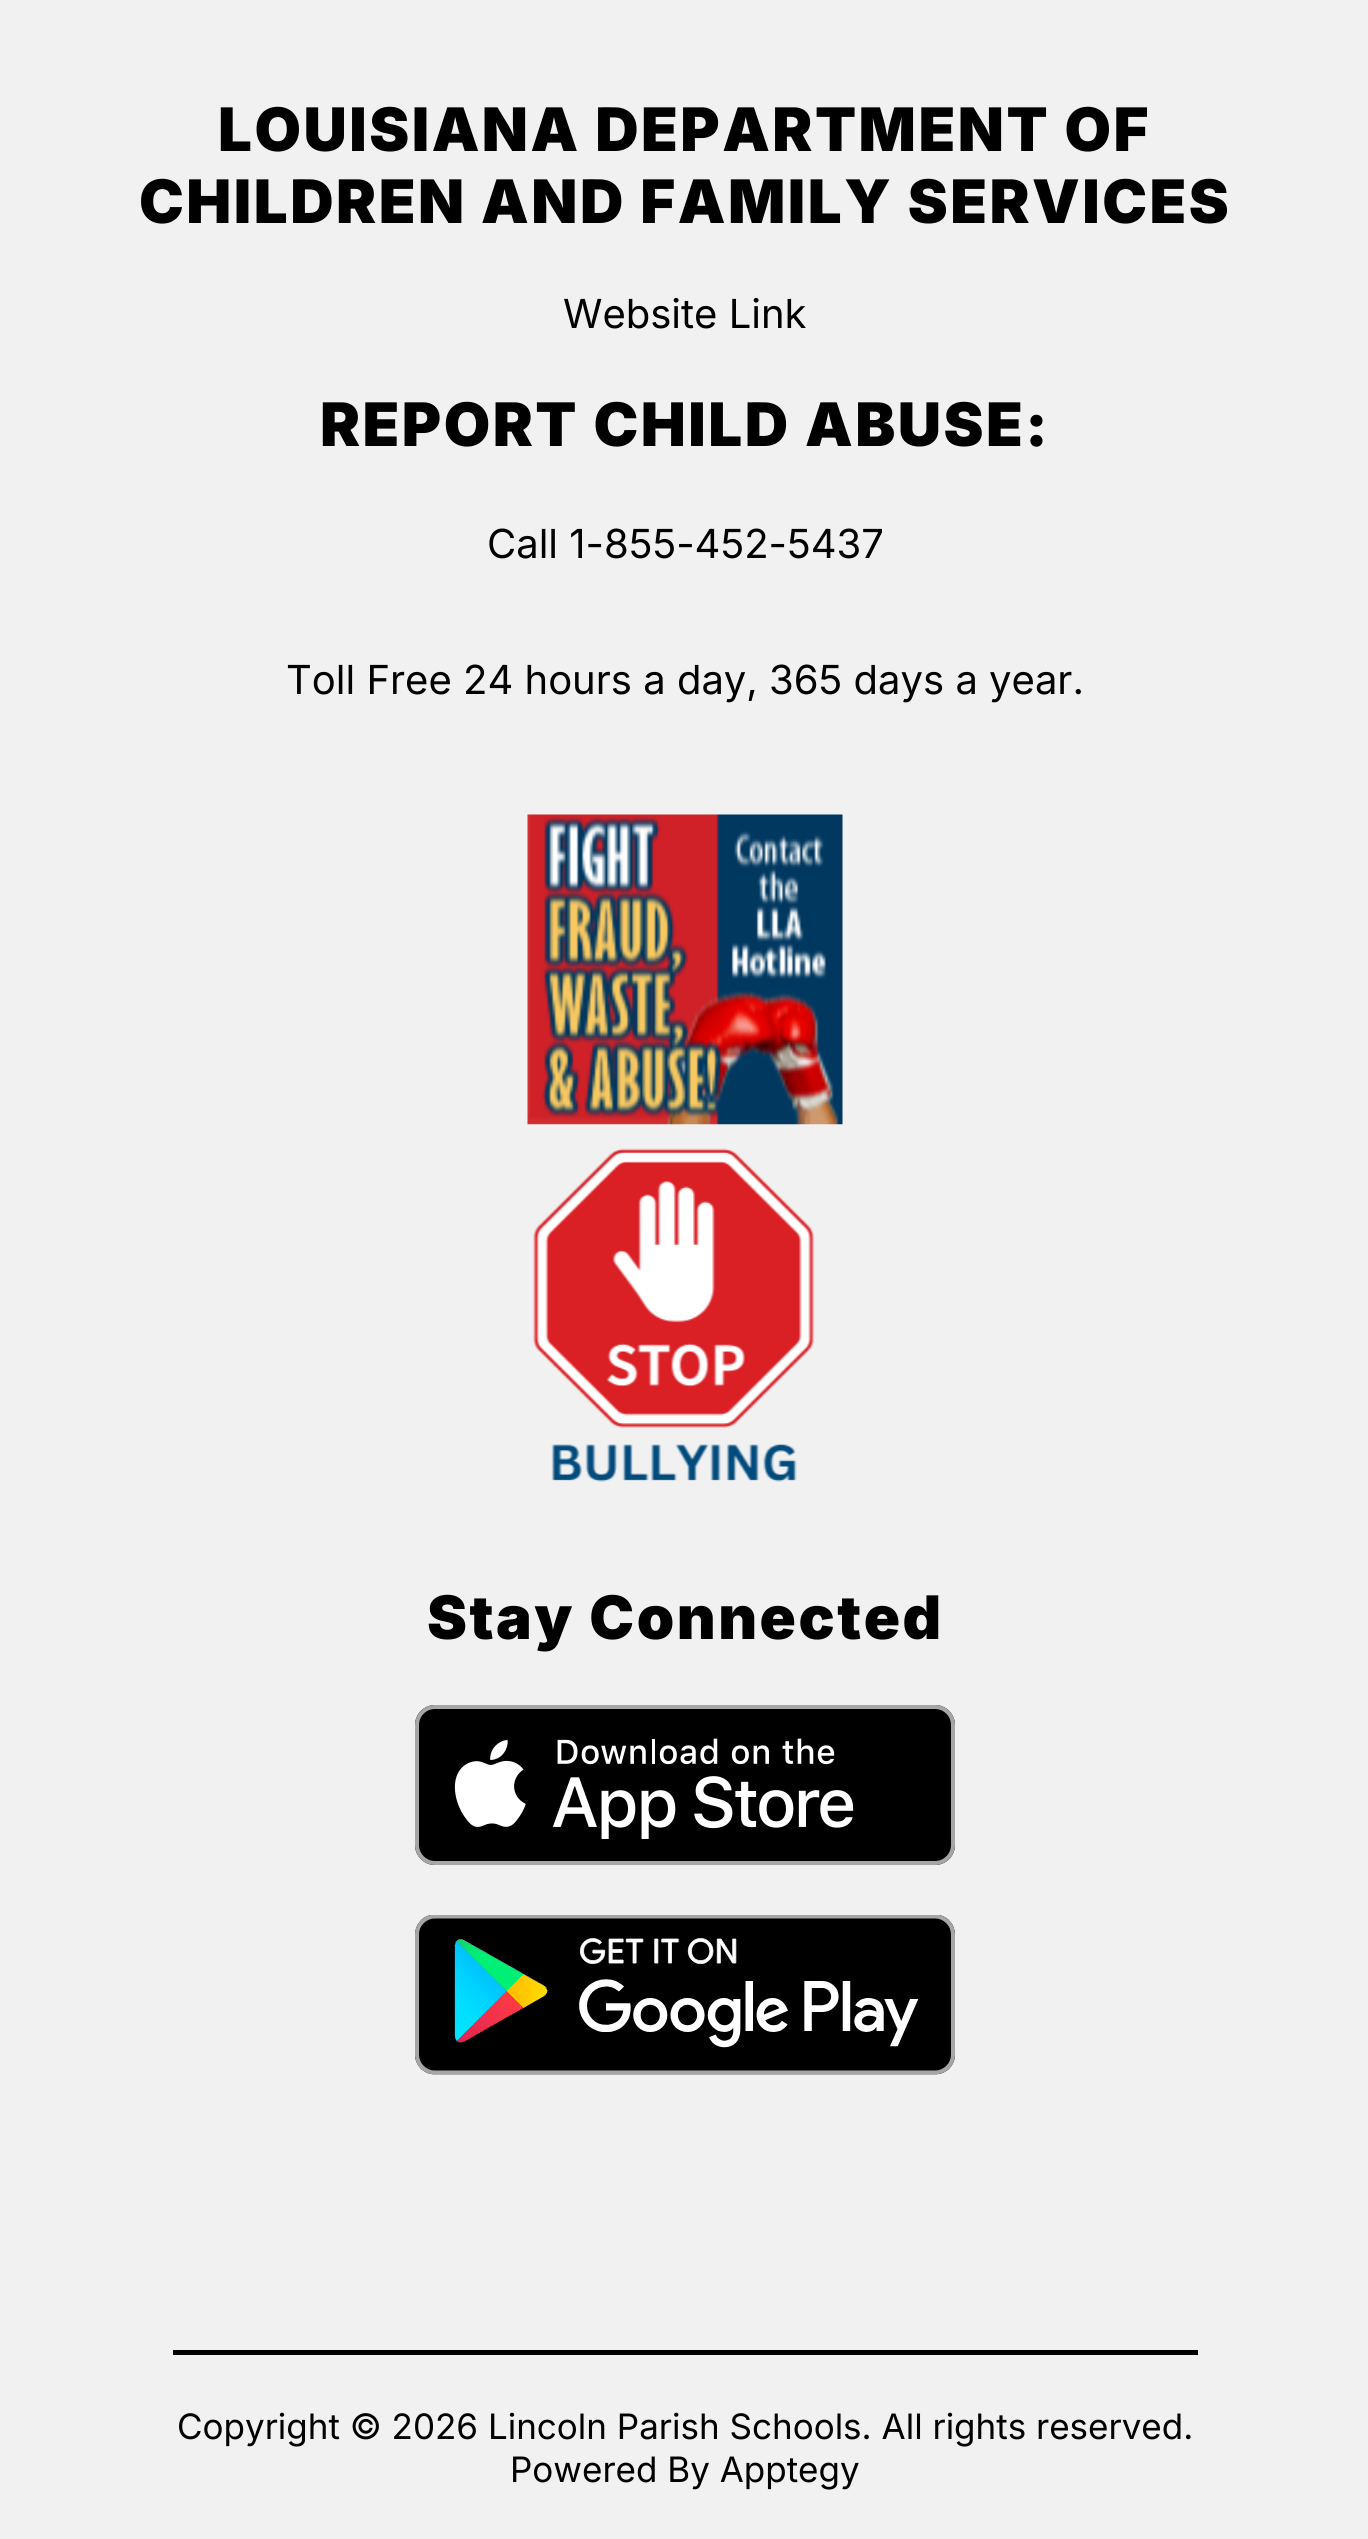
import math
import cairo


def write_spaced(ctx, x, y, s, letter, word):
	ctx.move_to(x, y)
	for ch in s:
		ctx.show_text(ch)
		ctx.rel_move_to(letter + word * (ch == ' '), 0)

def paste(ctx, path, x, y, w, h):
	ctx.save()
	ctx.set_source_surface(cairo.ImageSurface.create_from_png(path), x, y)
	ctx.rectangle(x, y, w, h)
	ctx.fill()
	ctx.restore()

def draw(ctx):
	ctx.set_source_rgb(0.945, 0.945, 0.945)
	ctx.paint()
	ctx.select_font_face('Inter Black')
	ctx.set_font_size(60)
	ctx.set_source_rgb(0, 0, 0)
	write_spaced(ctx, 218, 151, 'LOUISIANA DEPARTMENT OF', 2.5, 0)
	write_spaced(ctx, 139, 223, 'CHILDREN AND FAMILY SERVICES', 2.5, 0)
	ctx.select_font_face('Inter')
	ctx.set_font_size(40)
	ctx.move_to(563, 328)
	ctx.show_text('Website Link')
	ctx.select_font_face('Inter Black')
	ctx.set_font_size(60)
	write_spaced(ctx, 320, 446, 'REPORT CHILD ABUSE:', 2.5, 0)
	ctx.select_font_face('Inter')
	ctx.set_font_size(40)
	ctx.move_to(487, 558)
	ctx.show_text('Call 1-855-452-5437')
	ctx.move_to(286, 694)
	ctx.show_text('Toll Free 24 hours a day, 365 days a year.')
	paste(ctx, 'media/1.png', 527, 814, 316, 311)
	paste(ctx, 'media/2.png', 527, 1124, 316, 358)
	ctx.select_font_face('Inter Black')
	ctx.set_font_size(60)
	write_spaced(ctx, 427, 1639, 'Stay Connected', 2.5, 0)
	paste(ctx, 'media/3.png', 415, 1705, 540, 160)
	paste(ctx, 'media/4.png', 415, 1915, 540, 160)
	ctx.rectangle(173, 2350, 1025, 5)
	ctx.fill()
	ctx.select_font_face('Inter')
	ctx.set_font_size(35)
	ctx.move_to(177, 2439)
	ctx.show_text('Copyright © 2026 Lincoln Parish Schools. All rights reserved.')
	ctx.move_to(510, 2482)
	ctx.show_text('Powered By Apptegy')


surface = cairo.ImageSurface(cairo.FORMAT_RGB24, 1368, 2539)
ctx = cairo.Context(surface)
options = cairo.FontOptions()
options.set_hint_metrics(cairo.HINT_METRICS_OFF)
options.set_hint_style(cairo.HINT_STYLE_NONE)
ctx.set_font_options(options)
ctx.set_miter_limit(4)
draw(ctx)
surface.write_to_png('image.png')
